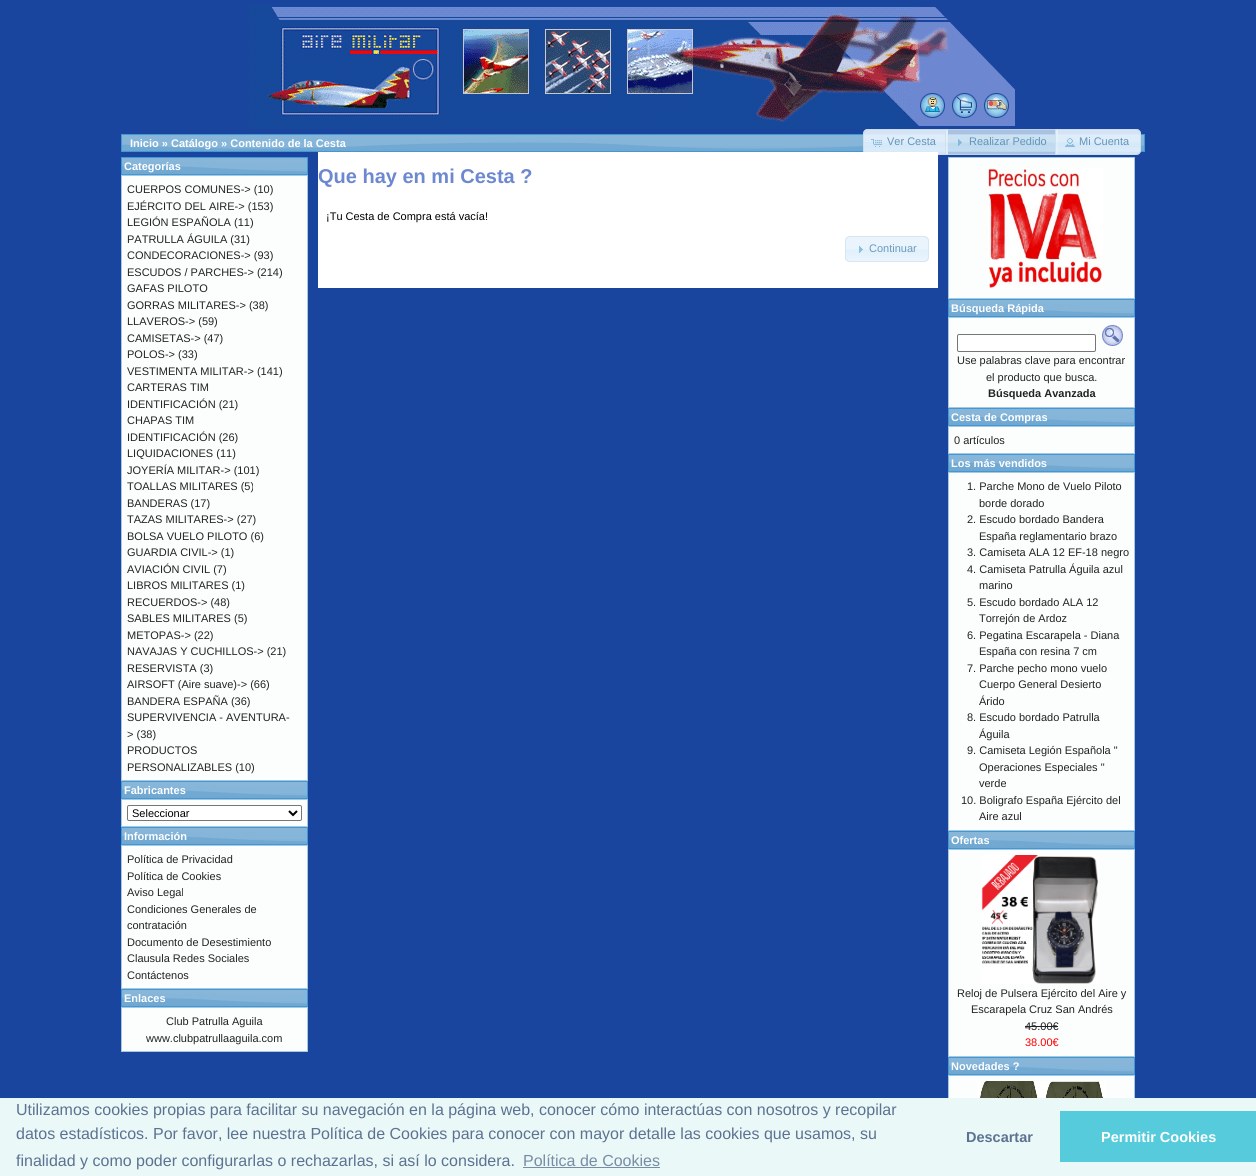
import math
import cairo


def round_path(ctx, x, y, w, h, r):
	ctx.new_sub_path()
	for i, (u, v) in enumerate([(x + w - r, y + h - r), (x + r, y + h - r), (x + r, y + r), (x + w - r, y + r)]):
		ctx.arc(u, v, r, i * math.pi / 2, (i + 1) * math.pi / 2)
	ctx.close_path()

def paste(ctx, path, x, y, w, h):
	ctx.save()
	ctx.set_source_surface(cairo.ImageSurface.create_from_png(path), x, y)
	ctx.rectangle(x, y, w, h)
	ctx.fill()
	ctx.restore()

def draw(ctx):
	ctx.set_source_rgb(0.102, 0.271, 0.62)
	ctx.paint()
	paste(ctx, 'media/1.png', 122, 135, 1022, 16)
	ctx.rectangle(121.5, 134.5, 1023, 17)
	ctx.set_source_rgb(0.259, 0.592, 0.843)
	ctx.set_line_width(1)
	ctx.stroke()
	ctx.select_font_face('Liberation Sans', cairo.FONT_SLANT_NORMAL, cairo.FONT_WEIGHT_BOLD)
	ctx.set_font_size(11)
	ctx.set_source_rgb(1, 1, 1)
	ctx.move_to(130, 147)
	ctx.show_text('Inicio » Catálogo » Contenido de la Cesta')
	paste(ctx, 'media/2.png', 249, 5, 666, 124)
	paste(ctx, 'media/3.png', 915, 7, 33, 119)
	paste(ctx, 'media/4.png', 948, 22, 33, 104)
	paste(ctx, 'media/5.png', 981, 54, 34, 72)
	ctx.set_source_rgba(0.875, 0.937, 0.988, 0.7)
	ctx.new_path()
	ctx.move_to(868, 129)
	ctx.line_to(948, 129)
	ctx.line_to(948, 155)
	ctx.line_to(868, 155)
	ctx.curve_to(865, 155, 863, 153, 863, 150)
	ctx.line_to(863, 134)
	ctx.curve_to(863, 131, 865, 129, 868, 129)
	ctx.close_path()
	ctx.fill()
	paste(ctx, 'media/6.png', 863, 129, 85, 26)
	ctx.new_path()
	ctx.move_to(868, 129.5)
	ctx.line_to(947.5, 129.5)
	ctx.line_to(947.5, 154.5)
	ctx.line_to(868, 154.5)
	ctx.curve_to(865.5, 154.5, 863.5, 152.5, 863.5, 150)
	ctx.line_to(863.5, 134)
	ctx.curve_to(863.5, 131.5, 865.5, 129.5, 868, 129.5)
	ctx.close_path()
	ctx.set_source_rgba(0.773, 0.859, 0.925, 0.7)
	ctx.stroke()
	paste(ctx, 'media/7.png', 871, 139, 11, 8)
	ctx.select_font_face('Liberation Sans')
	ctx.set_source_rgb(0.384, 0.58, 0.725)
	ctx.move_to(887, 145)
	ctx.show_text('Ver Cesta')
	paste(ctx, 'media/8.png', 945, 129, 113, 26)
	ctx.rectangle(945.5, 129.5, 112, 25)
	ctx.set_source_rgba(0.773, 0.859, 0.925, 0.7)
	ctx.stroke()
	paste(ctx, 'media/9.png', 958, 139, 4, 7)
	ctx.set_source_rgb(0.384, 0.58, 0.725)
	ctx.move_to(969, 145)
	ctx.show_text('Realizar Pedido')
	ctx.set_source_rgba(0.875, 0.937, 0.988, 0.7)
	ctx.new_path()
	ctx.move_to(1055, 129)
	ctx.line_to(1136, 129)
	ctx.curve_to(1139, 129, 1141, 131, 1141, 134)
	ctx.line_to(1141, 150)
	ctx.curve_to(1141, 153, 1139, 155, 1136, 155)
	ctx.line_to(1055, 155)
	ctx.close_path()
	ctx.fill()
	paste(ctx, 'media/10.png', 1055, 129, 86, 26)
	ctx.new_path()
	ctx.move_to(1055.5, 129.5)
	ctx.line_to(1136, 129.5)
	ctx.curve_to(1138.5, 129.5, 1140.5, 131.5, 1140.5, 134)
	ctx.line_to(1140.5, 150)
	ctx.curve_to(1140.5, 152.5, 1138.5, 154.5, 1136, 154.5)
	ctx.line_to(1055.5, 154.5)
	ctx.close_path()
	ctx.set_source_rgba(0.773, 0.859, 0.925, 0.7)
	ctx.stroke()
	paste(ctx, 'media/11.png', 1065, 138, 10, 9)
	ctx.set_source_rgb(0.384, 0.58, 0.725)
	ctx.move_to(1079, 145)
	ctx.show_text('Mi Cuenta')
	paste(ctx, 'media/12.png', 122, 158, 185, 16)
	ctx.rectangle(121.5, 157.5, 186, 17)
	ctx.set_source_rgb(0.259, 0.592, 0.843)
	ctx.stroke()
	ctx.select_font_face('Liberation Sans', cairo.FONT_SLANT_NORMAL, cairo.FONT_WEIGHT_BOLD)
	ctx.set_source_rgb(1, 1, 1)
	ctx.move_to(124, 170)
	ctx.show_text('Categorías')
	ctx.set_source_rgb(0.988, 0.992, 0.992)
	ctx.rectangle(121.5, 175.5, 186, 605)
	ctx.fill_preserve()
	ctx.set_source_rgb(0.651, 0.788, 0.886)
	ctx.stroke()
	ctx.select_font_face('Liberation Sans')
	ctx.set_source_rgb(0.133, 0.133, 0.133)
	for x, y, s in [
		(127, 193, 'CUERPOS COMUNES-> (10)'),
		(127, 210, 'EJÉRCITO DEL AIRE-> (153)'),
		(127, 226, 'LEGIÓN ESPAÑOLA (11)'),
		(127, 243, 'PATRULLA ÁGUILA (31)'),
		(127, 259, 'CONDECORACIONES-> (93)'),
		(127, 276, 'ESCUDOS / PARCHES-> (214)'),
		(127, 292, 'GAFAS PILOTO'),
		(127, 309, 'GORRAS MILITARES-> (38)'),
		(127, 325, 'LLAVEROS-> (59)'),
		(127, 342, 'CAMISETAS-> (47)'),
		(127, 358, 'POLOS-> (33)'),
		(127, 375, 'VESTIMENTA MILITAR-> (141)'),
		(127, 391, 'CARTERAS TIM'),
		(127, 408, 'IDENTIFICACIÓN (21)'),
		(127, 424, 'CHAPAS TIM'),
		(127, 441, 'IDENTIFICACIÓN (26)'),
		(127, 457, 'LIQUIDACIONES (11)'),
		(127, 474, 'JOYERÍA MILITAR-> (101)'),
		(127, 490, 'TOALLAS MILITARES (5)'),
		(127, 507, 'BANDERAS (17)'),
		(127, 523, 'TAZAS MILITARES-> (27)'),
		(127, 540, 'BOLSA VUELO PILOTO (6)'),
		(127, 556, 'GUARDIA CIVIL-> (1)'),
		(127, 573, 'AVIACIÓN CIVIL (7)'),
		(127, 589, 'LIBROS MILITARES (1)'),
		(127, 606, 'RECUERDOS-> (48)'),
		(127, 622, 'SABLES MILITARES (5)'),
		(127, 639, 'METOPAS-> (22)'),
		(127, 655, 'NAVAJAS Y CUCHILLOS-> (21)'),
		(127, 672, 'RESERVISTA (3)'),
		(127, 688, 'AIRSOFT (Aire suave)-> (66)'),
		(127, 705, 'BANDERA ESPAÑA (36)'),
		(127, 721, 'SUPERVIVENCIA - AVENTURA-'),
		(127, 738, '> (38)'),
		(127, 754, 'PRODUCTOS'),
		(127, 771, 'PERSONALIZABLES (10)'),
	]:
		ctx.move_to(x, y)
		ctx.show_text(s)
	paste(ctx, 'media/12.png', 122, 782, 185, 16)
	ctx.rectangle(121.5, 781.5, 186, 17)
	ctx.set_source_rgb(0.259, 0.592, 0.843)
	ctx.stroke()
	ctx.select_font_face('Liberation Sans', cairo.FONT_SLANT_NORMAL, cairo.FONT_WEIGHT_BOLD)
	ctx.set_source_rgb(1, 1, 1)
	ctx.move_to(124, 794)
	ctx.show_text('Fabricantes')
	ctx.set_source_rgb(0.988, 0.992, 0.992)
	ctx.rectangle(121.5, 799.5, 186, 27)
	ctx.fill_preserve()
	ctx.set_source_rgb(0.651, 0.788, 0.886)
	ctx.stroke()
	ctx.set_source_rgb(1, 1, 1)
	round_path(ctx, 127.5, 805.5, 174, 15, 1.5)
	ctx.fill_preserve()
	ctx.set_source_rgb(0.463, 0.463, 0.463)
	ctx.stroke()
	ctx.new_path()
	ctx.move_to(289, 811)
	ctx.line_to(293, 815)
	ctx.line_to(297, 811)
	ctx.set_source_rgb(0, 0, 0)
	ctx.set_line_width(2)
	ctx.stroke()
	ctx.select_font_face('Liberation Sans')
	ctx.move_to(132, 817)
	ctx.show_text('Seleccionar')
	paste(ctx, 'media/12.png', 122, 828, 185, 16)
	ctx.rectangle(121.5, 827.5, 186, 17)
	ctx.set_source_rgb(0.259, 0.592, 0.843)
	ctx.set_line_width(1)
	ctx.stroke()
	ctx.select_font_face('Liberation Sans', cairo.FONT_SLANT_NORMAL, cairo.FONT_WEIGHT_BOLD)
	ctx.set_source_rgb(1, 1, 1)
	ctx.move_to(124, 840)
	ctx.show_text('Información')
	ctx.set_source_rgb(0.988, 0.992, 0.992)
	ctx.rectangle(121.5, 845.5, 186, 143)
	ctx.fill_preserve()
	ctx.set_source_rgb(0.651, 0.788, 0.886)
	ctx.stroke()
	ctx.select_font_face('Liberation Sans')
	ctx.set_source_rgb(0.133, 0.133, 0.133)
	for x, y, s in [
		(127, 863, 'Política de Privacidad'),
		(127, 880, 'Política de Cookies'),
		(127, 896, 'Aviso Legal'),
		(127, 913, 'Condiciones Generales de'),
		(127, 929, 'contratación'),
		(127, 946, 'Documento de Desestimiento'),
		(127, 962, 'Clausula Redes Sociales'),
		(127, 979, 'Contáctenos'),
	]:
		ctx.move_to(x, y)
		ctx.show_text(s)
	paste(ctx, 'media/12.png', 122, 990, 185, 16)
	ctx.rectangle(121.5, 989.5, 186, 17)
	ctx.set_source_rgb(0.259, 0.592, 0.843)
	ctx.stroke()
	ctx.select_font_face('Liberation Sans', cairo.FONT_SLANT_NORMAL, cairo.FONT_WEIGHT_BOLD)
	ctx.set_source_rgb(1, 1, 1)
	ctx.move_to(124, 1002)
	ctx.show_text('Enlaces')
	ctx.set_source_rgb(0.988, 0.992, 0.992)
	ctx.rectangle(121.5, 1007.5, 186, 44)
	ctx.fill_preserve()
	ctx.set_source_rgb(0.651, 0.788, 0.886)
	ctx.stroke()
	ctx.select_font_face('Liberation Sans')
	ctx.set_source_rgb(0.133, 0.133, 0.133)
	ctx.move_to(166, 1025)
	ctx.show_text('Club Patrulla Aguila')
	ctx.move_to(146, 1042)
	ctx.show_text('www.clubpatrullaaguila.com')
	ctx.set_source_rgb(1, 1, 1)
	ctx.rectangle(318, 152, 620, 136)
	ctx.fill()
	ctx.select_font_face('Liberation Sans', cairo.FONT_SLANT_NORMAL, cairo.FONT_WEIGHT_BOLD)
	ctx.set_font_size(20)
	ctx.set_source_rgb(0.427, 0.533, 0.82)
	ctx.move_to(318, 183)
	ctx.show_text('Que hay en mi Cesta ?')
	ctx.select_font_face('Liberation Sans')
	ctx.set_font_size(11)
	ctx.set_source_rgb(0, 0, 0)
	ctx.move_to(326, 220)
	ctx.show_text('¡Tu Cesta de Compra está vacía!')
	ctx.set_source_rgb(0.914, 0.957, 0.992)
	round_path(ctx, 845, 236, 84, 26, 5)
	ctx.fill()
	paste(ctx, 'media/13.png', 845, 249, 84, 12)
	round_path(ctx, 845.5, 236.5, 83, 25, 4.5)
	ctx.set_source_rgb(0.839, 0.902, 0.949)
	ctx.stroke()
	paste(ctx, 'media/14.png', 859, 246, 4, 7)
	ctx.set_source_rgb(0.427, 0.604, 0.733)
	ctx.move_to(869, 252)
	ctx.show_text('Continuar')
	ctx.set_source_rgb(0.988, 0.992, 0.992)
	ctx.rectangle(948.5, 157.5, 186, 141)
	ctx.fill_preserve()
	ctx.set_source_rgb(0.651, 0.788, 0.886)
	ctx.stroke()
	paste(ctx, 'media/15.png', 988, 168, 115, 122)
	paste(ctx, 'media/12.png', 949, 300, 185, 16)
	ctx.rectangle(948.5, 299.5, 186, 17)
	ctx.set_source_rgb(0.259, 0.592, 0.843)
	ctx.stroke()
	ctx.select_font_face('Liberation Sans', cairo.FONT_SLANT_NORMAL, cairo.FONT_WEIGHT_BOLD)
	ctx.set_source_rgb(1, 1, 1)
	ctx.move_to(951, 312)
	ctx.show_text('Búsqueda Rápida')
	ctx.set_source_rgb(0.988, 0.992, 0.992)
	ctx.rectangle(948.5, 317.5, 186, 90)
	ctx.fill_preserve()
	ctx.set_source_rgb(0.651, 0.788, 0.886)
	ctx.stroke()
	ctx.set_source_rgb(1, 1, 1)
	round_path(ctx, 957.5, 334.5, 138, 17, 1.5)
	ctx.fill_preserve()
	ctx.set_source_rgb(0.463, 0.463, 0.463)
	ctx.stroke()
	paste(ctx, 'media/16.png', 1102, 325, 21, 21)
	ctx.select_font_face('Liberation Sans')
	ctx.set_source_rgb(0.133, 0.133, 0.133)
	ctx.move_to(957, 364)
	ctx.show_text('Use palabras clave para encontrar')
	ctx.move_to(986, 381)
	ctx.show_text('el producto que busca.')
	ctx.select_font_face('Liberation Sans', cairo.FONT_SLANT_NORMAL, cairo.FONT_WEIGHT_BOLD)
	ctx.move_to(988, 397)
	ctx.show_text('Búsqueda Avanzada')
	paste(ctx, 'media/12.png', 949, 409, 185, 16)
	ctx.rectangle(948.5, 408.5, 186, 17)
	ctx.set_source_rgb(0.259, 0.592, 0.843)
	ctx.stroke()
	ctx.set_source_rgb(1, 1, 1)
	ctx.move_to(951, 421)
	ctx.show_text('Cesta de Compras')
	ctx.set_source_rgb(0.988, 0.992, 0.992)
	ctx.rectangle(948.5, 426.5, 186, 27)
	ctx.fill_preserve()
	ctx.set_source_rgb(0.651, 0.788, 0.886)
	ctx.stroke()
	ctx.select_font_face('Liberation Sans')
	ctx.set_source_rgb(0.133, 0.133, 0.133)
	ctx.move_to(954, 444)
	ctx.show_text('0 artículos')
	paste(ctx, 'media/12.png', 949, 455, 185, 16)
	ctx.rectangle(948.5, 454.5, 186, 17)
	ctx.set_source_rgb(0.259, 0.592, 0.843)
	ctx.stroke()
	ctx.select_font_face('Liberation Sans', cairo.FONT_SLANT_NORMAL, cairo.FONT_WEIGHT_BOLD)
	ctx.set_source_rgb(1, 1, 1)
	ctx.move_to(951, 467)
	ctx.show_text('Los más vendidos')
	ctx.set_source_rgb(0.988, 0.992, 0.992)
	ctx.rectangle(948.5, 472.5, 186, 358)
	ctx.fill_preserve()
	ctx.set_source_rgb(0.651, 0.788, 0.886)
	ctx.stroke()
	ctx.select_font_face('Liberation Sans')
	ctx.set_source_rgb(0.133, 0.133, 0.133)
	for x, y, s in [
		(967, 490, '1. Parche Mono de Vuelo Piloto'),
		(979, 507, 'borde dorado'),
		(967, 523, '2. Escudo bordado Bandera'),
		(979, 540, 'España reglamentario brazo'),
		(967, 556, '3. Camiseta ALA 12 EF-18 negro'),
		(967, 573, '4. Camiseta Patrulla Águila azul'),
		(979, 589, 'marino'),
		(967, 606, '5. Escudo bordado ALA 12'),
		(979, 622, 'Torrejón de Ardoz'),
		(967, 639, '6. Pegatina Escarapela - Diana'),
		(979, 655, 'España con resina 7 cm'),
		(967, 672, '7. Parche pecho mono vuelo'),
		(979, 688, 'Cuerpo General Desierto'),
		(979, 705, 'Árido'),
		(967, 721, '8. Escudo bordado Patrulla'),
		(979, 738, 'Águila'),
		(967, 754, '9. Camiseta Legión Española "'),
		(979, 771, 'Operaciones Especiales "'),
		(979, 787, 'verde'),
		(961, 804, '10. Boligrafo España Ejército del'),
		(979, 820, 'Aire azul'),
	]:
		ctx.move_to(x, y)
		ctx.show_text(s)
	paste(ctx, 'media/12.png', 949, 832, 185, 16)
	ctx.rectangle(948.5, 831.5, 186, 17)
	ctx.set_source_rgb(0.259, 0.592, 0.843)
	ctx.stroke()
	ctx.select_font_face('Liberation Sans', cairo.FONT_SLANT_NORMAL, cairo.FONT_WEIGHT_BOLD)
	ctx.set_source_rgb(1, 1, 1)
	ctx.move_to(951, 844)
	ctx.show_text('Ofertas')
	ctx.set_source_rgb(0.988, 0.992, 0.992)
	ctx.rectangle(948.5, 849.5, 186, 207)
	ctx.fill_preserve()
	ctx.set_source_rgb(0.651, 0.788, 0.886)
	ctx.stroke()
	paste(ctx, 'media/17.png', 981, 855, 118, 129)
	ctx.select_font_face('Liberation Sans')
	ctx.set_source_rgb(0.133, 0.133, 0.133)
	for x, y, s in [
		(957, 997, 'Reloj de Pulsera Ejército del Aire y'),
		(971, 1013, 'Escarapela Cruz San Andrés'),
		(1025, 1030, '45.00€'),
	]:
		ctx.move_to(x, y)
		ctx.show_text(s)
	ctx.rectangle(1025, 1026, 33, 1)
	ctx.fill()
	ctx.set_source_rgb(1, 0, 0)
	ctx.move_to(1025, 1046)
	ctx.show_text('38.00€')
	paste(ctx, 'media/12.png', 949, 1058, 185, 16)
	ctx.rectangle(948.5, 1057.5, 186, 17)
	ctx.set_source_rgb(0.259, 0.592, 0.843)
	ctx.stroke()
	ctx.select_font_face('Liberation Sans', cairo.FONT_SLANT_NORMAL, cairo.FONT_WEIGHT_BOLD)
	ctx.set_source_rgb(1, 1, 1)
	ctx.move_to(951, 1070)
	ctx.show_text('Novedades ?')
	ctx.set_source_rgb(0.988, 0.992, 0.992)
	ctx.rectangle(949, 1076, 185, 22)
	ctx.fill()
	ctx.rectangle(948.5, 1075.5, 186, 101)
	ctx.set_source_rgb(0.651, 0.788, 0.886)
	ctx.stroke()
	paste(ctx, 'media/18.png', 977, 1081, 129, 17)
	ctx.set_source_rgb(0.918, 0.969, 0.969)
	ctx.rectangle(0, 1098, 1256, 78)
	ctx.fill()
	ctx.select_font_face('Liberation Sans')
	ctx.set_font_size(16)
	ctx.set_source_rgb(0.361, 0.447, 0.569)
	for x, y, s in [
		(16, 1115, 'Utilizamos cookies propias para facilitar su navegación en la página web, conocer cómo interactúas con nosotros y recopilar'),
		(16, 1139, 'datos estadísticos. Por favor, lee nuestra Política de Cookies para conocer con mayor detalle las cookies que usamos, su'),
		(16, 1166, 'finalidad y como poder configurarlas o rechazarlas, si así lo considera.'),
	]:
		ctx.move_to(x, y)
		ctx.show_text(s)
	ctx.set_source_rgb(0.471, 0.553, 0.647)
	ctx.move_to(523, 1166)
	ctx.show_text('Política de Cookies')
	ctx.rectangle(523, 1167, 137, 1)
	ctx.fill()
	ctx.select_font_face('Liberation Sans', cairo.FONT_SLANT_NORMAL, cairo.FONT_WEIGHT_BOLD)
	ctx.set_font_size(14.5)
	ctx.set_source_rgb(0.361, 0.447, 0.569)
	ctx.move_to(966, 1142)
	ctx.show_text('Descartar')
	ctx.set_source_rgb(0.337, 0.796, 0.859)
	ctx.rectangle(1060, 1111, 196, 51)
	ctx.fill()
	ctx.set_source_rgb(1, 1, 1)
	ctx.move_to(1101, 1142)
	ctx.show_text('Permitir Cookies')


surface = cairo.ImageSurface(cairo.FORMAT_RGB24, 1256, 1176)
ctx = cairo.Context(surface)
options = cairo.FontOptions()
options.set_hint_metrics(cairo.HINT_METRICS_OFF)
options.set_hint_style(cairo.HINT_STYLE_NONE)
ctx.set_font_options(options)
ctx.set_miter_limit(4)
draw(ctx)
surface.write_to_png('image.png')
